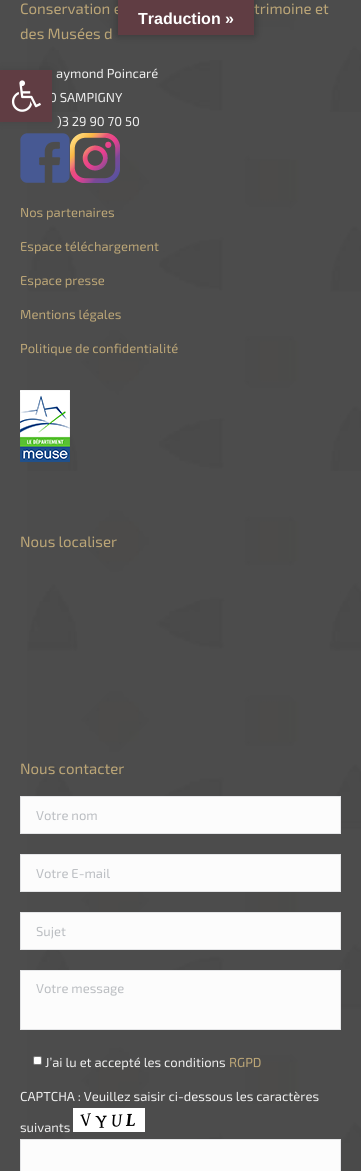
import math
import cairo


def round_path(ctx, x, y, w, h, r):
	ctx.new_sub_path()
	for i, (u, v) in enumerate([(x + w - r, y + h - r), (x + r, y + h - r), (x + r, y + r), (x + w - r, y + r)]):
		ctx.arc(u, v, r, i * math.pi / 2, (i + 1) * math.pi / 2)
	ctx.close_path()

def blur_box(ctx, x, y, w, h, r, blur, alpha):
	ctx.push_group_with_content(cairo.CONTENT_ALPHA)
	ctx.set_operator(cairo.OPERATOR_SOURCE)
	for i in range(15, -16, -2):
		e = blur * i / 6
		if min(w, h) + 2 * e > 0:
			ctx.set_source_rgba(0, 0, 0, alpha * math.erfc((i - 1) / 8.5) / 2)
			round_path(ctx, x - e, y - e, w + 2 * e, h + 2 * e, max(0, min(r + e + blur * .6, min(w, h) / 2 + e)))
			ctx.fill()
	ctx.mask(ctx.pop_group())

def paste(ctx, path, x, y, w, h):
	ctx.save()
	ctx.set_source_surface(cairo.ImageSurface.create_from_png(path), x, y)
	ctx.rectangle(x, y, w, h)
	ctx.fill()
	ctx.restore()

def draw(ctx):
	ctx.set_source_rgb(0.302, 0.302, 0.302)
	ctx.paint()
	paste(ctx, 'media/1.png', 27, 0, 334, 1171)
	ctx.select_font_face('Exo 2')
	ctx.set_font_size(15)
	ctx.set_source_rgb(0.737, 0.651, 0.467)
	for x, y, s in [
		(20, 14, 'Conservation e'),
		(254, 14, 'trimoine et'),
		(20, 39, 'des Musées d'),
	]:
		ctx.move_to(x, y)
		ctx.show_text(s)
	ctx.set_font_size(13)
	ctx.set_source_rgb(0.937, 0.937, 0.937)
	for x, y, s in [
		(56, 78, 'aymond Poincaré'),
		(49, 102, '0 SAMPIGNY'),
		(57, 126, ')3 29 90 70 50'),
	]:
		ctx.move_to(x, y)
		ctx.show_text(s)
	paste(ctx, 'media/2.png', 20, 133, 50, 50)
	paste(ctx, 'media/3.png', 70, 133, 50, 50)
	ctx.set_source_rgb(0.737, 0.651, 0.467)
	for x, y, s in [
		(20, 217, 'Nos partenaires'),
		(20, 251, 'Espace téléchargement'),
		(20, 285, 'Espace presse'),
		(20, 319, 'Mentions légales'),
		(20, 353, 'Politique de confidentialité'),
	]:
		ctx.move_to(x, y)
		ctx.show_text(s)
	paste(ctx, 'media/4.png', 20, 390, 50, 72)
	ctx.set_font_size(15)
	ctx.move_to(20, 547)
	ctx.show_text('Nous localiser')
	ctx.move_to(20, 774)
	ctx.show_text('Nous contacter')
	ctx.set_source_rgb(0.988, 0.988, 0.988)
	ctx.rectangle(20.5, 796.5, 320, 37)
	ctx.fill_preserve()
	ctx.set_source_rgb(0.894, 0.898, 0.906)
	ctx.set_line_width(1)
	ctx.stroke()
	ctx.set_font_size(13)
	ctx.set_source_rgb(0.729, 0.741, 0.757)
	ctx.move_to(36, 820)
	ctx.show_text('Votre nom')
	ctx.set_source_rgb(0.988, 0.988, 0.988)
	ctx.rectangle(20.5, 854.5, 320, 37)
	ctx.fill_preserve()
	ctx.set_source_rgb(0.894, 0.898, 0.906)
	ctx.stroke()
	ctx.set_source_rgb(0.729, 0.741, 0.757)
	ctx.move_to(36, 878)
	ctx.show_text('Votre E-mail')
	ctx.set_source_rgb(0.988, 0.988, 0.988)
	ctx.rectangle(20.5, 912.5, 320, 37)
	ctx.fill_preserve()
	ctx.set_source_rgb(0.894, 0.898, 0.906)
	ctx.stroke()
	ctx.set_source_rgb(0.729, 0.741, 0.757)
	ctx.move_to(36, 936)
	ctx.show_text('Sujet')
	ctx.set_source_rgb(0.988, 0.988, 0.988)
	ctx.rectangle(20.5, 970.5, 320, 59)
	ctx.fill_preserve()
	ctx.set_source_rgb(0.894, 0.898, 0.906)
	ctx.stroke()
	ctx.set_source_rgb(0.729, 0.741, 0.757)
	ctx.move_to(36, 993)
	ctx.show_text('Votre message')
	ctx.set_source_rgb(1, 1, 1)
	round_path(ctx, 33.5, 1056.5, 8, 8, 1.5)
	ctx.fill_preserve()
	ctx.set_source_rgb(0.463, 0.463, 0.463)
	ctx.stroke()
	ctx.set_source_rgb(0.937, 0.937, 0.937)
	ctx.move_to(45, 1067)
	ctx.show_text('J’ai lu et accepté les conditions')
	ctx.set_source_rgb(0.737, 0.651, 0.467)
	ctx.move_to(229, 1067)
	ctx.show_text('RGPD')
	ctx.set_source_rgb(0.937, 0.937, 0.937)
	ctx.move_to(20, 1101)
	ctx.show_text('CAPTCHA : Veuillez saisir ci-dessous les caractères')
	ctx.move_to(20, 1132)
	ctx.show_text('suivants')
	paste(ctx, 'media/5.png', 73, 1108, 72, 24)
	ctx.set_source_rgb(0.988, 0.988, 0.988)
	ctx.rectangle(20.5, 1139.5, 320, 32)
	ctx.fill_preserve()
	ctx.set_source_rgb(0.894, 0.898, 0.906)
	ctx.stroke()
	ctx.set_source_rgb(0, 0, 0)
	blur_box(ctx, 118, 0, 136, 35, 0, 4.5, 0.3)
	ctx.set_source_rgb(0.376, 0.239, 0.263)
	ctx.rectangle(118, 0, 136, 35)
	ctx.fill()
	ctx.select_font_face('Liberation Sans', cairo.FONT_SLANT_NORMAL, cairo.FONT_WEIGHT_BOLD)
	ctx.set_font_size(16)
	ctx.set_source_rgb(1, 1, 1)
	ctx.move_to(138, 24)
	ctx.show_text('Traduction »')
	ctx.set_source_rgb(0, 0, 0)
	blur_box(ctx, 0, 70, 52, 52, 0, 5, 0.1)
	ctx.set_source_rgb(0.376, 0.239, 0.263)
	ctx.rectangle(0, 70, 52, 52)
	ctx.fill()
	paste(ctx, 'media/6.png', 11, 80, 30, 32)


surface = cairo.ImageSurface(cairo.FORMAT_RGB24, 361, 1171)
ctx = cairo.Context(surface)
options = cairo.FontOptions()
options.set_hint_metrics(cairo.HINT_METRICS_OFF)
options.set_hint_style(cairo.HINT_STYLE_NONE)
ctx.set_font_options(options)
ctx.set_miter_limit(4)
draw(ctx)
surface.write_to_png('image.png')
